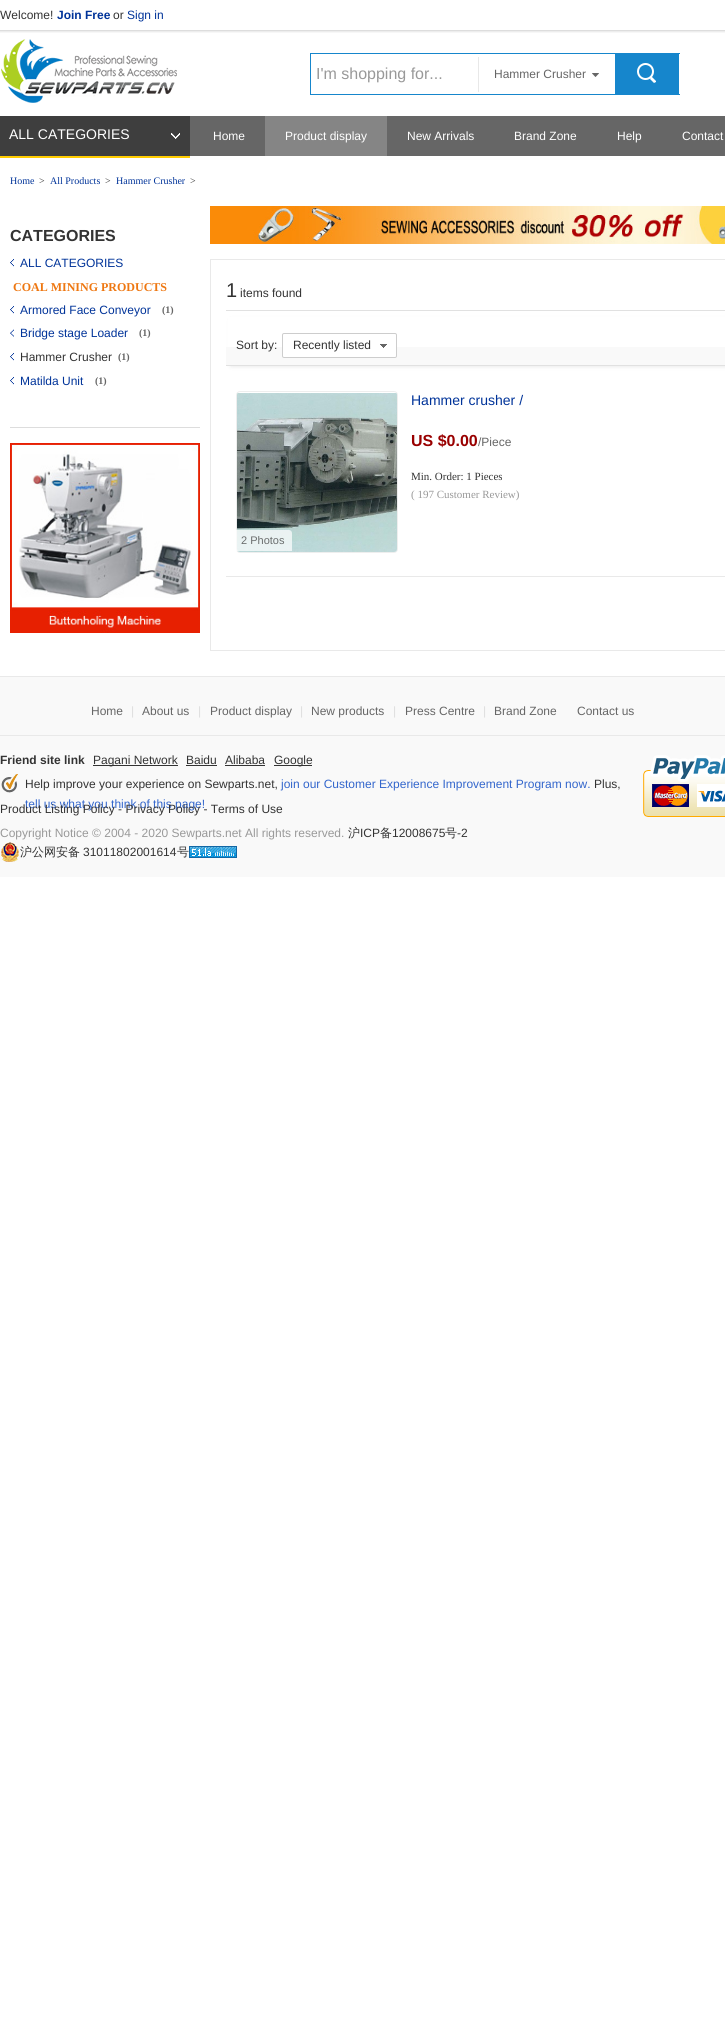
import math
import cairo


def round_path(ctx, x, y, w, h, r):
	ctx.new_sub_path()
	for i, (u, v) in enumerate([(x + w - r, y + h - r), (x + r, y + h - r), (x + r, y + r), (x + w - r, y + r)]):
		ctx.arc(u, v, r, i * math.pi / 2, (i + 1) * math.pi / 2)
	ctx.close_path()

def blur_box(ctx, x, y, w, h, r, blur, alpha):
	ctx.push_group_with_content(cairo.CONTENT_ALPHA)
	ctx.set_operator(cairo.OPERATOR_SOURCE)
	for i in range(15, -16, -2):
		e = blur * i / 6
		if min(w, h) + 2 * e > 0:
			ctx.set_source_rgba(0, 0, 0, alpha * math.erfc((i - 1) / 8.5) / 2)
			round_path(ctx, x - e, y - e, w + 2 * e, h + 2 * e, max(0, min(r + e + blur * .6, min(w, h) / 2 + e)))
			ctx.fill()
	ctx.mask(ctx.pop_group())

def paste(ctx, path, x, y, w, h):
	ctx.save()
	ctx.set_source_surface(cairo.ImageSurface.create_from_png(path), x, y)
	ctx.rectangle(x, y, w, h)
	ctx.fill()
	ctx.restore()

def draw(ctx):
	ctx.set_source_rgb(1, 1, 1)
	ctx.paint()
	ctx.save()
	ctx.rectangle(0, 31, 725, 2)
	ctx.clip()
	ctx.set_source_rgb(0, 0, 0)
	blur_box(ctx, -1, -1, 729, 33, 0, 1, 0.1)
	ctx.restore()
	ctx.set_source_rgb(0.867, 0.867, 0.867)
	ctx.rectangle(0, 30, 725, 1)
	ctx.fill()
	ctx.select_font_face('Liberation Sans')
	ctx.set_font_size(12)
	ctx.set_source_rgb(0.2, 0.2, 0.2)
	ctx.move_to(0, 19)
	ctx.show_text('Welcome!')
	ctx.select_font_face('Liberation Sans', cairo.FONT_SLANT_NORMAL, cairo.FONT_WEIGHT_BOLD)
	ctx.set_source_rgb(0, 0.2, 0.6)
	ctx.move_to(57, 19)
	ctx.show_text('Join Free')
	ctx.select_font_face('Liberation Sans')
	ctx.set_source_rgb(0.2, 0.2, 0.2)
	ctx.move_to(113, 19)
	ctx.show_text('or')
	ctx.set_source_rgb(0, 0.2, 0.6)
	ctx.move_to(127, 19)
	ctx.show_text('Sign in')
	paste(ctx, 'media/1.png', 1, 39, 176, 64)
	ctx.set_source_rgb(0.086, 0.525, 0.8)
	ctx.rectangle(310, 53, 370, 42)
	ctx.fill()
	ctx.set_source_rgb(1, 1, 1)
	ctx.rectangle(311, 54, 369, 40)
	ctx.fill()
	ctx.set_font_size(16)
	ctx.set_source_rgb(0.6, 0.6, 0.6)
	ctx.move_to(316, 79)
	ctx.show_text('I\'m shopping for...')
	paste(ctx, 'media/2.png', 592, 73, 7, 4)
	ctx.set_source_rgb(0.91, 0.91, 0.91)
	ctx.rectangle(478, 57, 1, 35)
	ctx.fill()
	ctx.set_font_size(12)
	ctx.set_source_rgb(0.4, 0.4, 0.4)
	ctx.move_to(494, 78)
	ctx.show_text('Hammer Crusher')
	ctx.set_source_rgb(0.086, 0.525, 0.8)
	ctx.rectangle(615, 54, 64, 40)
	ctx.fill()
	paste(ctx, 'media/3.png', 637, 63, 19, 20)
	ctx.set_source_rgb(0.4, 0.4, 0.4)
	ctx.rectangle(190, 116, 535, 40)
	ctx.fill()
	ctx.set_source_rgb(0.243, 0.243, 0.243)
	ctx.rectangle(0, 116, 190, 40)
	ctx.fill()
	paste(ctx, 'media/4.png', 171, 133, 9, 6)
	ctx.set_source_rgb(1, 0.8, 0)
	ctx.rectangle(0, 156, 190, 2)
	ctx.fill()
	ctx.set_font_size(14)
	ctx.set_source_rgb(1, 1, 1)
	ctx.move_to(9, 139)
	ctx.show_text('ALL CATEGORIES')
	ctx.set_font_size(12)
	ctx.move_to(213, 140)
	ctx.show_text('Home')
	ctx.set_source_rgb(0.522, 0.522, 0.522)
	ctx.rectangle(265, 116, 122, 40)
	ctx.fill()
	ctx.set_source_rgb(1, 1, 1)
	for x, y, s in [
		(285, 140, 'Product display'),
		(407, 140, 'New Arrivals'),
		(514, 140, 'Brand Zone'),
		(617, 140, 'Help'),
		(682, 140, 'Contact'),
	]:
		ctx.move_to(x, y)
		ctx.show_text(s)
	ctx.select_font_face('Liberation Serif')
	ctx.set_font_size(10)
	ctx.set_source_rgb(0, 0.2, 0.6)
	ctx.move_to(10, 184)
	ctx.show_text('Home')
	ctx.set_source_rgb(0.2, 0.2, 0.2)
	ctx.move_to(39, 184)
	ctx.show_text('>')
	ctx.set_source_rgb(0, 0.2, 0.6)
	ctx.move_to(50, 184)
	ctx.show_text('All Products')
	ctx.set_source_rgb(0.2, 0.2, 0.2)
	ctx.move_to(105, 184)
	ctx.show_text('>')
	ctx.set_source_rgb(0, 0.2, 0.6)
	ctx.move_to(116, 184)
	ctx.show_text('Hammer Crusher')
	ctx.set_source_rgb(0.2, 0.2, 0.2)
	ctx.move_to(190, 184)
	ctx.show_text('>')
	ctx.select_font_face('Liberation Sans', cairo.FONT_SLANT_NORMAL, cairo.FONT_WEIGHT_BOLD)
	ctx.set_font_size(16)
	ctx.move_to(10, 241)
	ctx.show_text('CATEGORIES')
	paste(ctx, 'media/5.png', 10, 259, 4, 8)
	ctx.select_font_face('Liberation Sans')
	ctx.set_font_size(12)
	ctx.set_source_rgb(0, 0.2, 0.6)
	ctx.move_to(20, 267)
	ctx.show_text('ALL CATEGORIES')
	ctx.select_font_face('Liberation Serif', cairo.FONT_SLANT_NORMAL, cairo.FONT_WEIGHT_BOLD)
	ctx.set_source_rgb(0.933, 0.467, 0.067)
	ctx.move_to(13, 291)
	ctx.show_text('COAL MINING PRODUCTS')
	paste(ctx, 'media/5.png', 10, 306, 4, 8)
	ctx.select_font_face('Liberation Sans')
	ctx.set_source_rgb(0, 0.2, 0.6)
	ctx.move_to(20, 314)
	ctx.show_text('Armored Face Conveyor')
	ctx.select_font_face('Liberation Serif', cairo.FONT_SLANT_NORMAL, cairo.FONT_WEIGHT_BOLD)
	ctx.set_font_size(10)
	ctx.set_source_rgb(0.4, 0.4, 0.4)
	ctx.move_to(162, 313)
	ctx.show_text('(1)')
	paste(ctx, 'media/6.png', 10, 329, 4, 8)
	ctx.select_font_face('Liberation Sans')
	ctx.set_font_size(12)
	ctx.set_source_rgb(0, 0.2, 0.6)
	ctx.move_to(20, 337)
	ctx.show_text('Bridge stage Loader')
	ctx.select_font_face('Liberation Serif', cairo.FONT_SLANT_NORMAL, cairo.FONT_WEIGHT_BOLD)
	ctx.set_font_size(10)
	ctx.set_source_rgb(0.4, 0.4, 0.4)
	ctx.move_to(139, 336)
	ctx.show_text('(1)')
	paste(ctx, 'media/5.png', 10, 353, 4, 8)
	ctx.select_font_face('Liberation Sans')
	ctx.set_font_size(12)
	ctx.set_source_rgb(0.2, 0.2, 0.2)
	ctx.move_to(20, 361)
	ctx.show_text('Hammer Crusher')
	ctx.select_font_face('Liberation Serif', cairo.FONT_SLANT_NORMAL, cairo.FONT_WEIGHT_BOLD)
	ctx.set_font_size(10)
	ctx.set_source_rgb(0.4, 0.4, 0.4)
	ctx.move_to(118, 360)
	ctx.show_text('(1)')
	paste(ctx, 'media/5.png', 10, 377, 4, 8)
	ctx.select_font_face('Liberation Sans')
	ctx.set_font_size(12)
	ctx.set_source_rgb(0, 0.2, 0.6)
	ctx.move_to(20, 385)
	ctx.show_text('Matilda Unit')
	ctx.select_font_face('Liberation Serif', cairo.FONT_SLANT_NORMAL, cairo.FONT_WEIGHT_BOLD)
	ctx.set_font_size(10)
	ctx.set_source_rgb(0.4, 0.4, 0.4)
	ctx.move_to(95, 384)
	ctx.show_text('(1)')
	ctx.set_source_rgb(0.867, 0.867, 0.867)
	ctx.rectangle(10, 427, 190, 1)
	ctx.fill()
	paste(ctx, 'media/7.png', 10, 443, 190, 190)
	paste(ctx, 'media/8.png', 210, 206, 515, 38)
	ctx.rectangle(210.5, 259.5, 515, 391)
	ctx.set_source_rgb(0.914, 0.914, 0.914)
	ctx.set_line_width(1)
	ctx.stroke()
	ctx.select_font_face('Liberation Sans')
	ctx.set_font_size(20)
	ctx.set_source_rgb(0.2, 0.2, 0.2)
	ctx.move_to(226, 297)
	ctx.show_text('1')
	ctx.set_font_size(12)
	ctx.move_to(240, 297)
	ctx.show_text('items found')
	ctx.set_source_rgb(0.024, 0, 0.004)
	blur_box(ctx, 231, 320, 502, 46, 0, 2.5, 0.11)
	ctx.set_source_rgb(0.976, 0.976, 0.976)
	ctx.rectangle(226, 347, 499, 18)
	ctx.fill()
	ctx.set_source_rgb(0.882, 0.882, 0.882)
	ctx.rectangle(226, 310, 499, 1)
	ctx.rectangle(226, 365, 499, 1)
	ctx.fill()
	ctx.set_source_rgb(1, 1, 1)
	ctx.rectangle(228, 317, 497, 30)
	ctx.fill()
	ctx.set_source_rgb(0.2, 0.2, 0.2)
	ctx.move_to(236, 349)
	ctx.show_text('Sort by:')
	ctx.set_source_rgb(1, 1, 1)
	round_path(ctx, 282.5, 333.5, 114, 24, 1.5)
	ctx.fill_preserve()
	ctx.set_source_rgb(0.804, 0.804, 0.804)
	ctx.stroke()
	ctx.set_source_rgb(0.2, 0.2, 0.2)
	ctx.move_to(293, 349)
	ctx.show_text('Recently listed')
	paste(ctx, 'media/9.png', 380, 344, 7, 4)
	ctx.set_source_rgb(0.914, 0.914, 0.914)
	ctx.rectangle(226, 576, 499, 1)
	ctx.fill()
	ctx.set_font_size(14)
	ctx.set_source_rgb(0, 0.2, 0.6)
	ctx.move_to(411, 405)
	ctx.show_text('Hammer crusher /')
	ctx.select_font_face('Liberation Sans', cairo.FONT_SLANT_NORMAL, cairo.FONT_WEIGHT_BOLD)
	ctx.set_font_size(16)
	ctx.set_source_rgb(0.6, 0, 0)
	ctx.move_to(411, 446)
	ctx.show_text('US $0.00')
	ctx.select_font_face('Liberation Sans')
	ctx.set_font_size(12)
	ctx.set_source_rgb(0.4, 0.4, 0.4)
	ctx.move_to(478, 446)
	ctx.show_text('/Piece')
	ctx.select_font_face('Liberation Serif')
	ctx.set_font_size(11)
	ctx.set_source_rgb(0.2, 0.2, 0.2)
	ctx.move_to(411, 480)
	ctx.show_text('Min. Order: 1 Pieces')
	ctx.set_source_rgb(0.6, 0.6, 0.6)
	ctx.move_to(411, 498)
	ctx.show_text('( 197 Customer Review)')
	round_path(ctx, 236.5, 391.5, 161, 161, 3.5)
	ctx.set_source_rgb(0.933, 0.933, 0.933)
	ctx.stroke()
	paste(ctx, 'media/10.png', 237, 393, 160, 159)
	ctx.set_source_rgba(1, 1, 1, 0.7)
	ctx.new_path()
	ctx.move_to(236, 530)
	ctx.line_to(289, 530)
	ctx.curve_to(290.5, 530, 292, 531.5, 292, 533)
	ctx.line_to(292, 551)
	ctx.line_to(236, 551)
	ctx.close_path()
	ctx.fill()
	ctx.select_font_face('Liberation Sans')
	ctx.set_source_rgb(0.416, 0.427, 0.427)
	ctx.move_to(241, 544)
	ctx.show_text('2 Photos')
	ctx.set_source_rgb(0.976, 0.976, 0.976)
	ctx.rectangle(0, 677, 725, 200)
	ctx.fill()
	ctx.set_source_rgb(0.914, 0.914, 0.914)
	ctx.rectangle(0, 676, 725, 1)
	ctx.fill()
	ctx.set_font_size(12)
	ctx.set_source_rgb(0.4, 0.4, 0.4)
	ctx.move_to(91, 715)
	ctx.show_text('Home')
	ctx.set_source_rgb(0.867, 0.867, 0.867)
	ctx.move_to(131, 715)
	ctx.show_text('|')
	ctx.set_source_rgb(0.4, 0.4, 0.4)
	ctx.move_to(142, 715)
	ctx.show_text('About us')
	ctx.set_source_rgb(0.867, 0.867, 0.867)
	ctx.move_to(198, 715)
	ctx.show_text('|')
	ctx.set_source_rgb(0.4, 0.4, 0.4)
	ctx.move_to(210, 715)
	ctx.show_text('Product display')
	ctx.set_source_rgb(0.867, 0.867, 0.867)
	ctx.move_to(300, 715)
	ctx.show_text('|')
	ctx.set_source_rgb(0.4, 0.4, 0.4)
	ctx.move_to(311, 715)
	ctx.show_text('New products')
	ctx.set_source_rgb(0.867, 0.867, 0.867)
	ctx.move_to(393, 715)
	ctx.show_text('|')
	ctx.set_source_rgb(0.4, 0.4, 0.4)
	ctx.move_to(405, 715)
	ctx.show_text('Press Centre')
	ctx.set_source_rgb(0.867, 0.867, 0.867)
	ctx.move_to(483, 715)
	ctx.show_text('|')
	ctx.set_source_rgb(0.4, 0.4, 0.4)
	ctx.move_to(494, 715)
	ctx.show_text('Brand Zone')
	ctx.move_to(577, 715)
	ctx.show_text('Contact us')
	ctx.set_source_rgb(0.914, 0.914, 0.914)
	ctx.rectangle(0, 735, 725, 1)
	ctx.fill()
	ctx.select_font_face('Liberation Sans', cairo.FONT_SLANT_NORMAL, cairo.FONT_WEIGHT_BOLD)
	ctx.set_source_rgb(0.2, 0.2, 0.2)
	ctx.move_to(0, 764)
	ctx.show_text('Friend site link')
	ctx.rectangle(93, 765, 85, 1)
	ctx.fill()
	ctx.select_font_face('Liberation Sans')
	ctx.move_to(93, 764)
	ctx.show_text('Pagani Network')
	ctx.move_to(186, 764)
	ctx.show_text('Baidu')
	ctx.rectangle(186, 765, 31, 1)
	ctx.fill()
	ctx.move_to(225, 764)
	ctx.show_text('Alibaba')
	ctx.rectangle(225, 765, 40, 1)
	ctx.fill()
	ctx.rectangle(274, 765, 38, 1)
	ctx.fill()
	ctx.move_to(274, 764)
	ctx.show_text('Google')
	paste(ctx, 'media/11.png', 643, 755, 82, 62)
	paste(ctx, 'media/12.png', 1, 774, 18, 19)
	ctx.move_to(25, 788)
	ctx.show_text('Help improve your experience on Sewparts.net,')
	ctx.set_source_rgb(0.2, 0.4, 0.8)
	ctx.move_to(281, 788)
	ctx.show_text('join our Customer Experience Improvement Program now.')
	ctx.set_source_rgb(0.2, 0.2, 0.2)
	ctx.move_to(594, 788)
	ctx.show_text('Plus,')
	ctx.set_source_rgb(0.2, 0.4, 0.8)
	ctx.move_to(25, 808)
	ctx.show_text('tell us what you think of this page!')
	ctx.set_source_rgb(0.2, 0.2, 0.2)
	ctx.move_to(0, 813)
	ctx.show_text('Product Listing Policy - Privacy Policy - Terms of Use')
	ctx.set_source_rgb(0.6, 0.6, 0.6)
	ctx.move_to(0, 837)
	ctx.show_text('Copyright Notice © 2004 - 2020 Sewparts.net All rights reserved.')
	ctx.select_font_face('WenQuanYi Zen Hei Medium')
	ctx.set_source_rgb(0.2, 0.2, 0.2)
	ctx.move_to(348, 837)
	ctx.show_text('沪')
	ctx.select_font_face('Liberation Sans')
	ctx.move_to(360, 837)
	ctx.show_text('ICP')
	ctx.select_font_face('WenQuanYi Zen Hei Medium')
	ctx.move_to(380, 837)
	ctx.show_text('备')
	ctx.select_font_face('Liberation Sans')
	ctx.move_to(392, 837)
	ctx.show_text('12008675')
	ctx.select_font_face('WenQuanYi Zen Hei Medium')
	ctx.move_to(445, 837)
	ctx.show_text('号')
	ctx.select_font_face('Liberation Sans')
	ctx.move_to(457, 837)
	ctx.show_text('-2')
	paste(ctx, 'media/13.png', 1, 842, 18, 20)
	ctx.select_font_face('WenQuanYi Zen Hei Medium')
	ctx.move_to(20, 856)
	ctx.show_text('沪公网安备')
	ctx.select_font_face('Liberation Sans')
	ctx.move_to(83, 856)
	ctx.show_text('31011802001614')
	ctx.select_font_face('WenQuanYi Zen Hei Medium')
	ctx.move_to(177, 856)
	ctx.show_text('号')
	paste(ctx, 'media/14.png', 189, 846, 48, 12)


surface = cairo.ImageSurface(cairo.FORMAT_RGB24, 725, 2032)
ctx = cairo.Context(surface)
options = cairo.FontOptions()
options.set_hint_metrics(cairo.HINT_METRICS_OFF)
options.set_hint_style(cairo.HINT_STYLE_NONE)
ctx.set_font_options(options)
ctx.set_miter_limit(4)
draw(ctx)
surface.write_to_png('image.png')
